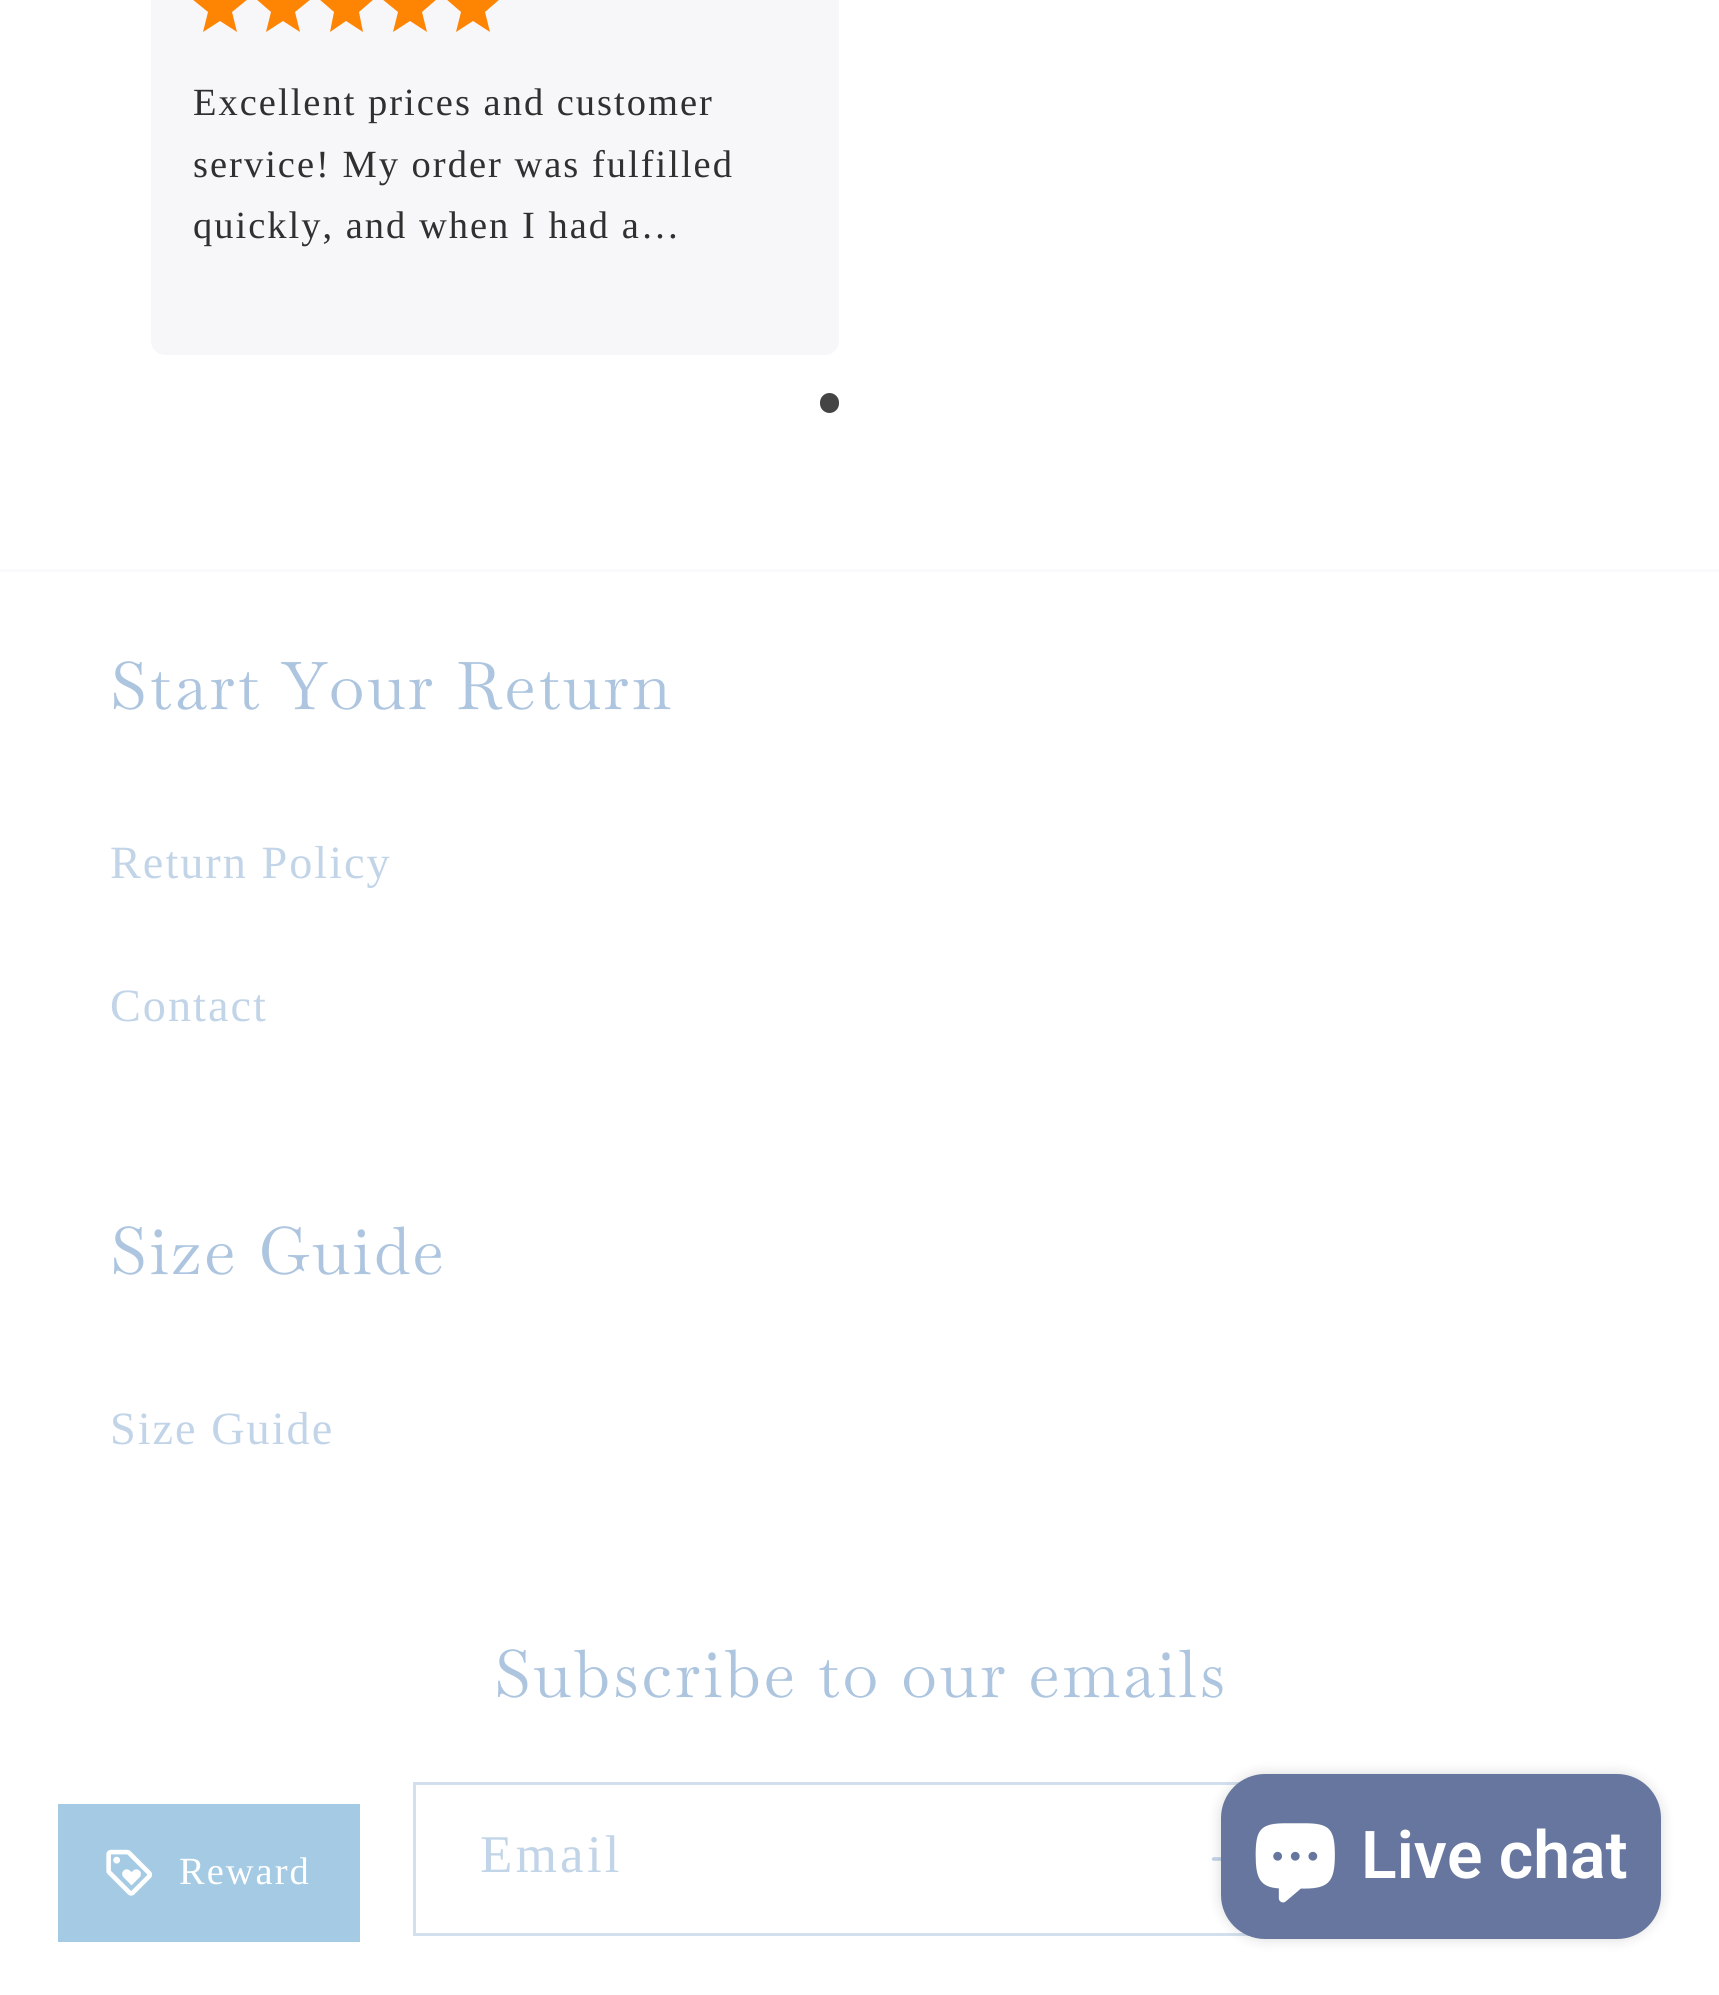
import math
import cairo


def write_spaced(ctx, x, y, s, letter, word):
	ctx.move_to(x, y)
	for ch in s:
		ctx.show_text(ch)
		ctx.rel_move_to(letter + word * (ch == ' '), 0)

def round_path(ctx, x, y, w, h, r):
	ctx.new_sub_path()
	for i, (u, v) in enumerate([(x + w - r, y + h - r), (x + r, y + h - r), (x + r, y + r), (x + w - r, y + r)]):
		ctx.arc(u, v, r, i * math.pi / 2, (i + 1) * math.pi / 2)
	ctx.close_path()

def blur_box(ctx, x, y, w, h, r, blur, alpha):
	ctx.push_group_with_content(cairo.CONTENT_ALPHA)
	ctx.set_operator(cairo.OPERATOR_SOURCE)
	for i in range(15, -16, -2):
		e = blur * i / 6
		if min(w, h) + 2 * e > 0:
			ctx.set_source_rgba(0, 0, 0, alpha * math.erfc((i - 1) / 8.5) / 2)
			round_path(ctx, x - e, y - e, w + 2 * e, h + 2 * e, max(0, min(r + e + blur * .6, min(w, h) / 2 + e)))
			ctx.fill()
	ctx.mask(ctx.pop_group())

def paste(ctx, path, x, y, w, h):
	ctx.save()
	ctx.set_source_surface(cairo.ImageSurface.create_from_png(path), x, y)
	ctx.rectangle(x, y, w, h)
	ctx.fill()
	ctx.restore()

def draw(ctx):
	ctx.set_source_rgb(1, 1, 1)
	ctx.paint()
	ctx.set_source_rgb(0.965, 0.965, 0.973)
	round_path(ctx, 151, -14, 688, 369, 14)
	ctx.fill()
	ctx.set_source_rgb(0.996, 0.518, 0.012)
	ctx.set_fill_rule(cairo.FILL_RULE_EVEN_ODD)
	ctx.new_path()
	ctx.move_to(220, -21)
	ctx.line_to(228, -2)
	ctx.line_to(248, -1)
	ctx.line_to(232, 12)
	ctx.line_to(237, 32)
	ctx.line_to(220, 21)
	ctx.line_to(203, 32)
	ctx.line_to(208, 12)
	ctx.line_to(192, -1)
	ctx.line_to(212, -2)
	ctx.close_path()
	ctx.fill()
	ctx.new_path()
	ctx.move_to(283, -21)
	ctx.line_to(291, -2)
	ctx.line_to(311, -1)
	ctx.line_to(295, 12)
	ctx.line_to(300, 32)
	ctx.line_to(283, 21)
	ctx.line_to(266, 32)
	ctx.line_to(271, 12)
	ctx.line_to(256, -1)
	ctx.line_to(276, -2)
	ctx.close_path()
	ctx.fill()
	ctx.new_path()
	ctx.move_to(346, -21)
	ctx.line_to(354, -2)
	ctx.line_to(374, -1)
	ctx.line_to(359, 12)
	ctx.line_to(363, 32)
	ctx.line_to(346, 21)
	ctx.line_to(330, 32)
	ctx.line_to(334, 12)
	ctx.line_to(319, -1)
	ctx.line_to(339, -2)
	ctx.close_path()
	ctx.fill()
	ctx.new_path()
	ctx.move_to(410, -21)
	ctx.line_to(417, -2)
	ctx.line_to(437, -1)
	ctx.line_to(422, 12)
	ctx.line_to(427, 32)
	ctx.line_to(410, 21)
	ctx.line_to(393, 32)
	ctx.line_to(398, 12)
	ctx.line_to(382, -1)
	ctx.line_to(402, -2)
	ctx.close_path()
	ctx.fill()
	ctx.new_path()
	ctx.move_to(473, -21)
	ctx.line_to(481, -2)
	ctx.line_to(500, -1)
	ctx.line_to(485, 12)
	ctx.line_to(490, 32)
	ctx.line_to(473, 21)
	ctx.line_to(456, 32)
	ctx.line_to(461, 12)
	ctx.line_to(446, -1)
	ctx.line_to(465, -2)
	ctx.close_path()
	ctx.fill()
	ctx.select_font_face('Liberation Serif')
	ctx.set_font_size(38.5)
	ctx.set_source_rgb(0.188, 0.188, 0.188)
	for x, y, s in [
		(193, 115, 'Excellent prices and customer'),
		(193, 177, 'service! My order was fulfilled'),
		(193, 238, 'quickly, and when I had a…'),
	]:
		write_spaced(ctx, x, y, s, 2, 0)
	ctx.set_source_rgb(0.267, 0.267, 0.267)
	round_path(ctx, 820, 393, 19, 20, 9.5)
	ctx.fill()
	ctx.set_source_rgb(0.973, 0.98, 0.988)
	ctx.rectangle(0, 569, 1719, 3)
	ctx.fill()
	ctx.select_font_face('Baskervville')
	ctx.set_font_size(66)
	ctx.set_source_rgb(0.678, 0.773, 0.875)
	write_spaced(ctx, 110, 709, 'Start Your Return', 2.5, 0)
	ctx.select_font_face('Liberation Serif')
	ctx.set_font_size(46.25)
	ctx.set_source_rgb(0.761, 0.831, 0.906)
	write_spaced(ctx, 110, 878, 'Return Policy', 2, 0)
	write_spaced(ctx, 110, 1021, 'Contact', 2, 0)
	ctx.select_font_face('Baskervville')
	ctx.set_font_size(66)
	ctx.set_source_rgb(0.678, 0.773, 0.875)
	write_spaced(ctx, 110, 1274, 'Size Guide', 2.5, 0)
	ctx.select_font_face('Liberation Serif')
	ctx.set_font_size(46.25)
	ctx.set_source_rgb(0.761, 0.831, 0.906)
	write_spaced(ctx, 110, 1444, 'Size Guide', 2, 0)
	ctx.select_font_face('Baskervville')
	ctx.set_font_size(66)
	ctx.set_source_rgb(0.678, 0.773, 0.875)
	write_spaced(ctx, 494, 1697, 'Subscribe to our emails', 2.5, 0)
	ctx.rectangle(414.5, 1783.5, 896, 151)
	ctx.set_source_rgb(0.824, 0.875, 0.929)
	ctx.set_line_width(3)
	ctx.stroke()
	ctx.select_font_face('Liberation Serif')
	ctx.set_font_size(53)
	ctx.set_source_rgb(0.761, 0.831, 0.906)
	write_spaced(ctx, 480, 1872, 'Email', 3.25, 0)
	paste(ctx, 'media/1.png', 1211, 1857, 10, 4)
	ctx.set_source_rgb(0, 0, 0)
	blur_box(ctx, 1221, 1774, 440, 165, 44, 7, 0.15)
	ctx.set_source_rgb(0.4, 0.463, 0.62)
	round_path(ctx, 1221, 1774, 440, 165, 44)
	ctx.fill()
	paste(ctx, 'media/2.png', 1255, 1823, 80, 80)
	ctx.select_font_face('Roboto SemiBold')
	ctx.set_font_size(66)
	ctx.set_source_rgb(1, 1, 1)
	ctx.move_to(1361, 1878)
	ctx.show_text('Live chat')
	ctx.set_source_rgb(0.643, 0.792, 0.894)
	ctx.rectangle(58, 1804, 302, 138)
	ctx.fill()
	paste(ctx, 'media/3.png', 106, 1849, 47, 47)
	ctx.select_font_face('Liberation Serif')
	ctx.set_font_size(38.5)
	ctx.set_source_rgb(1, 1, 1)
	write_spaced(ctx, 179, 1884, 'Reward', 2, 0)


surface = cairo.ImageSurface(cairo.FORMAT_RGB24, 1719, 1995)
ctx = cairo.Context(surface)
options = cairo.FontOptions()
options.set_hint_metrics(cairo.HINT_METRICS_OFF)
options.set_hint_style(cairo.HINT_STYLE_NONE)
ctx.set_font_options(options)
ctx.set_miter_limit(4)
draw(ctx)
surface.write_to_png('image.png')
